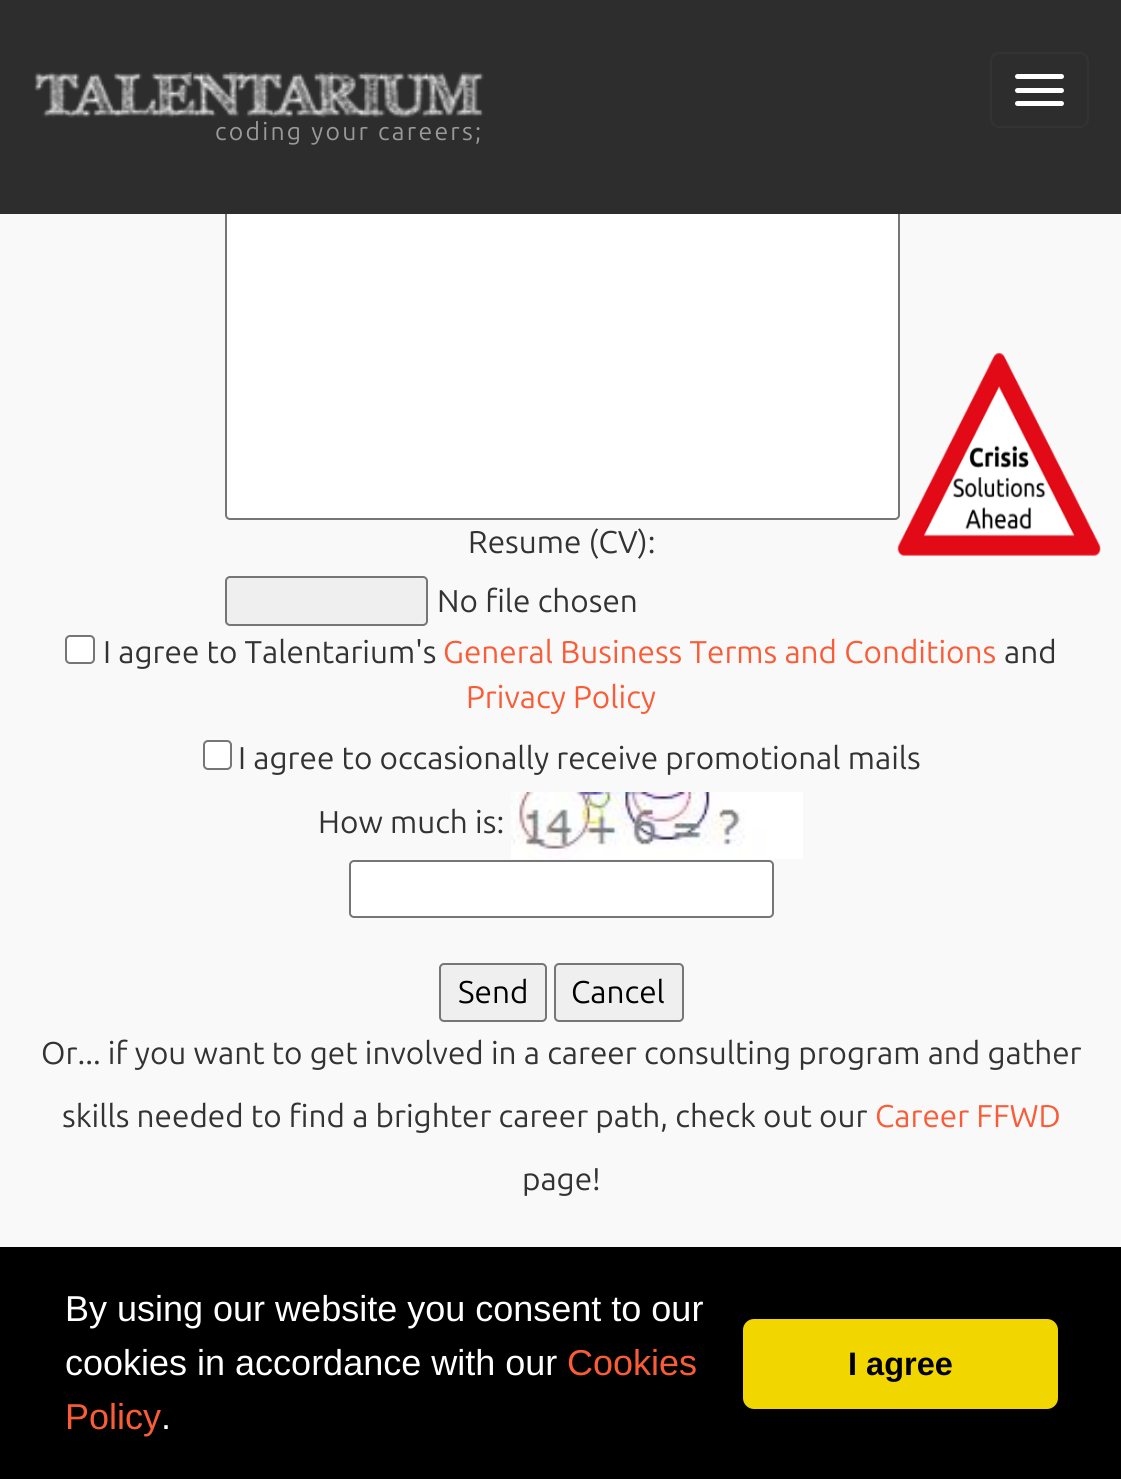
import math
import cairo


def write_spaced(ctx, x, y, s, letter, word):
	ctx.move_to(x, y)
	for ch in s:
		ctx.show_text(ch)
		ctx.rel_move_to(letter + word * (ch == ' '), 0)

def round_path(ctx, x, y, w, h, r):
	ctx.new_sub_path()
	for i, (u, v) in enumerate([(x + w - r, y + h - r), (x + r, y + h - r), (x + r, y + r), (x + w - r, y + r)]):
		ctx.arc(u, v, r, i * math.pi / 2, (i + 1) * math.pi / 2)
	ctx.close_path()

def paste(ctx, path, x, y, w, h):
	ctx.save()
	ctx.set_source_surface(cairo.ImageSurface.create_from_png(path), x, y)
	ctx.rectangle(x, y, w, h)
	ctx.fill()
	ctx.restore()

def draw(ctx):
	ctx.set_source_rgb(0.973, 0.973, 0.973)
	ctx.paint()
	ctx.set_source_rgb(1, 1, 1)
	round_path(ctx, 226, 183, 673, 336, 4)
	ctx.fill_preserve()
	ctx.set_source_rgb(0.463, 0.463, 0.463)
	ctx.stroke()
	ctx.set_source_rgb(0.176, 0.176, 0.176)
	ctx.rectangle(0, 0, 1121, 214)
	ctx.fill()
	round_path(ctx, 991, 53, 97, 74, 8)
	ctx.set_source_rgb(0.2, 0.2, 0.2)
	ctx.stroke()
	ctx.set_source_rgb(1, 1, 1)
	round_path(ctx, 1015, 74, 49, 5, 2.5)
	ctx.fill()
	round_path(ctx, 1015, 88, 49, 5, 2.5)
	ctx.fill()
	round_path(ctx, 1015, 101, 49, 5, 2.5)
	ctx.fill()
	paste(ctx, 'media/1.png', 34, 72, 450, 46)
	ctx.select_font_face('Ubuntu')
	ctx.set_font_size(24.75)
	ctx.set_source_rgb(0.6, 0.6, 0.6)
	write_spaced(ctx, 215, 140, 'coding your careers;', 2.25, 0)
	paste(ctx, 'media/2.png', 897, 353, 204, 203)
	ctx.set_font_size(31.5)
	ctx.set_source_rgb(0.2, 0.2, 0.2)
	ctx.move_to(468, 553)
	ctx.show_text('Resume (CV):')
	ctx.set_source_rgb(0.937, 0.937, 0.937)
	round_path(ctx, 226, 577, 201, 48, 4)
	ctx.fill_preserve()
	ctx.set_source_rgb(0.463, 0.463, 0.463)
	ctx.stroke()
	ctx.set_source_rgb(0.2, 0.2, 0.2)
	ctx.move_to(437, 612)
	ctx.show_text('No file chosen')
	ctx.set_source_rgb(1, 1, 1)
	round_path(ctx, 66, 636, 28, 27, 4)
	ctx.fill_preserve()
	ctx.set_source_rgb(0.463, 0.463, 0.463)
	ctx.stroke()
	ctx.set_source_rgb(0.2, 0.2, 0.2)
	ctx.move_to(103, 663)
	ctx.show_text('I agree to Talentarium\'s')
	ctx.set_source_rgb(0.973, 0.361, 0.216)
	ctx.move_to(443, 663)
	ctx.show_text('General Business Terms and Conditions')
	ctx.set_source_rgb(0.2, 0.2, 0.2)
	ctx.move_to(1004, 663)
	ctx.show_text('and')
	ctx.set_source_rgb(0.973, 0.361, 0.216)
	ctx.move_to(466, 708)
	ctx.show_text('Privacy Policy')
	ctx.set_source_rgb(1, 1, 1)
	round_path(ctx, 204, 741, 27, 28, 4)
	ctx.fill_preserve()
	ctx.set_source_rgb(0.463, 0.463, 0.463)
	ctx.stroke()
	ctx.set_source_rgb(0.2, 0.2, 0.2)
	ctx.move_to(238, 769)
	ctx.show_text('I agree to occasionally receive promotional mails')
	ctx.move_to(318, 833)
	ctx.show_text('How much is:')
	paste(ctx, 'media/3.png', 511, 792, 292, 67)
	ctx.set_source_rgb(1, 1, 1)
	round_path(ctx, 350, 861, 423, 56, 4)
	ctx.fill_preserve()
	ctx.set_source_rgb(0.463, 0.463, 0.463)
	ctx.stroke()
	ctx.set_source_rgb(0.937, 0.937, 0.937)
	round_path(ctx, 440, 964, 106, 57, 4)
	ctx.fill_preserve()
	ctx.set_source_rgb(0.463, 0.463, 0.463)
	ctx.stroke()
	ctx.set_source_rgb(0, 0, 0)
	ctx.move_to(458, 1003)
	ctx.show_text('Send')
	ctx.set_source_rgb(0.937, 0.937, 0.937)
	round_path(ctx, 555, 964, 128, 57, 4)
	ctx.fill_preserve()
	ctx.set_source_rgb(0.463, 0.463, 0.463)
	ctx.stroke()
	ctx.set_source_rgb(0, 0, 0)
	ctx.move_to(571, 1003)
	ctx.show_text('Cancel')
	ctx.set_source_rgb(0.2, 0.2, 0.2)
	ctx.move_to(41, 1064)
	ctx.show_text('Or... if you want to get involved in a career consulting program and gather')
	ctx.move_to(62, 1127)
	ctx.show_text('skills needed to find a brighter career path, check out our')
	ctx.set_source_rgb(0.973, 0.361, 0.216)
	ctx.move_to(875, 1127)
	ctx.show_text('Career FFWD')
	ctx.set_source_rgb(0.2, 0.2, 0.2)
	ctx.move_to(522, 1190)
	ctx.show_text('page!')
	ctx.set_source_rgb(0, 0, 0)
	ctx.rectangle(0, 1247, 1121, 232)
	ctx.fill()
	ctx.select_font_face('Liberation Sans')
	ctx.set_font_size(36)
	ctx.set_source_rgb(1, 1, 1)
	ctx.move_to(65, 1321)
	ctx.show_text('By using our website you consent to our')
	ctx.move_to(65, 1375)
	ctx.show_text('cookies in accordance with our')
	ctx.set_source_rgb(0.973, 0.361, 0.216)
	ctx.move_to(567, 1375)
	ctx.show_text('Cookies')
	ctx.move_to(65, 1429)
	ctx.show_text('Policy')
	ctx.set_source_rgb(1, 1, 1)
	ctx.move_to(161, 1429)
	ctx.show_text('.')
	ctx.set_source_rgb(0.945, 0.839, 0)
	round_path(ctx, 743, 1319, 315, 90, 11)
	ctx.fill()
	ctx.select_font_face('Liberation Sans', cairo.FONT_SLANT_NORMAL, cairo.FONT_WEIGHT_BOLD)
	ctx.set_font_size(32.5)
	ctx.set_source_rgb(0, 0, 0)
	ctx.move_to(848, 1375)
	ctx.show_text('I agree')


surface = cairo.ImageSurface(cairo.FORMAT_RGB24, 1121, 1479)
ctx = cairo.Context(surface)
options = cairo.FontOptions()
options.set_hint_metrics(cairo.HINT_METRICS_OFF)
options.set_hint_style(cairo.HINT_STYLE_NONE)
ctx.set_font_options(options)
ctx.set_miter_limit(4)
draw(ctx)
surface.write_to_png('image.png')
